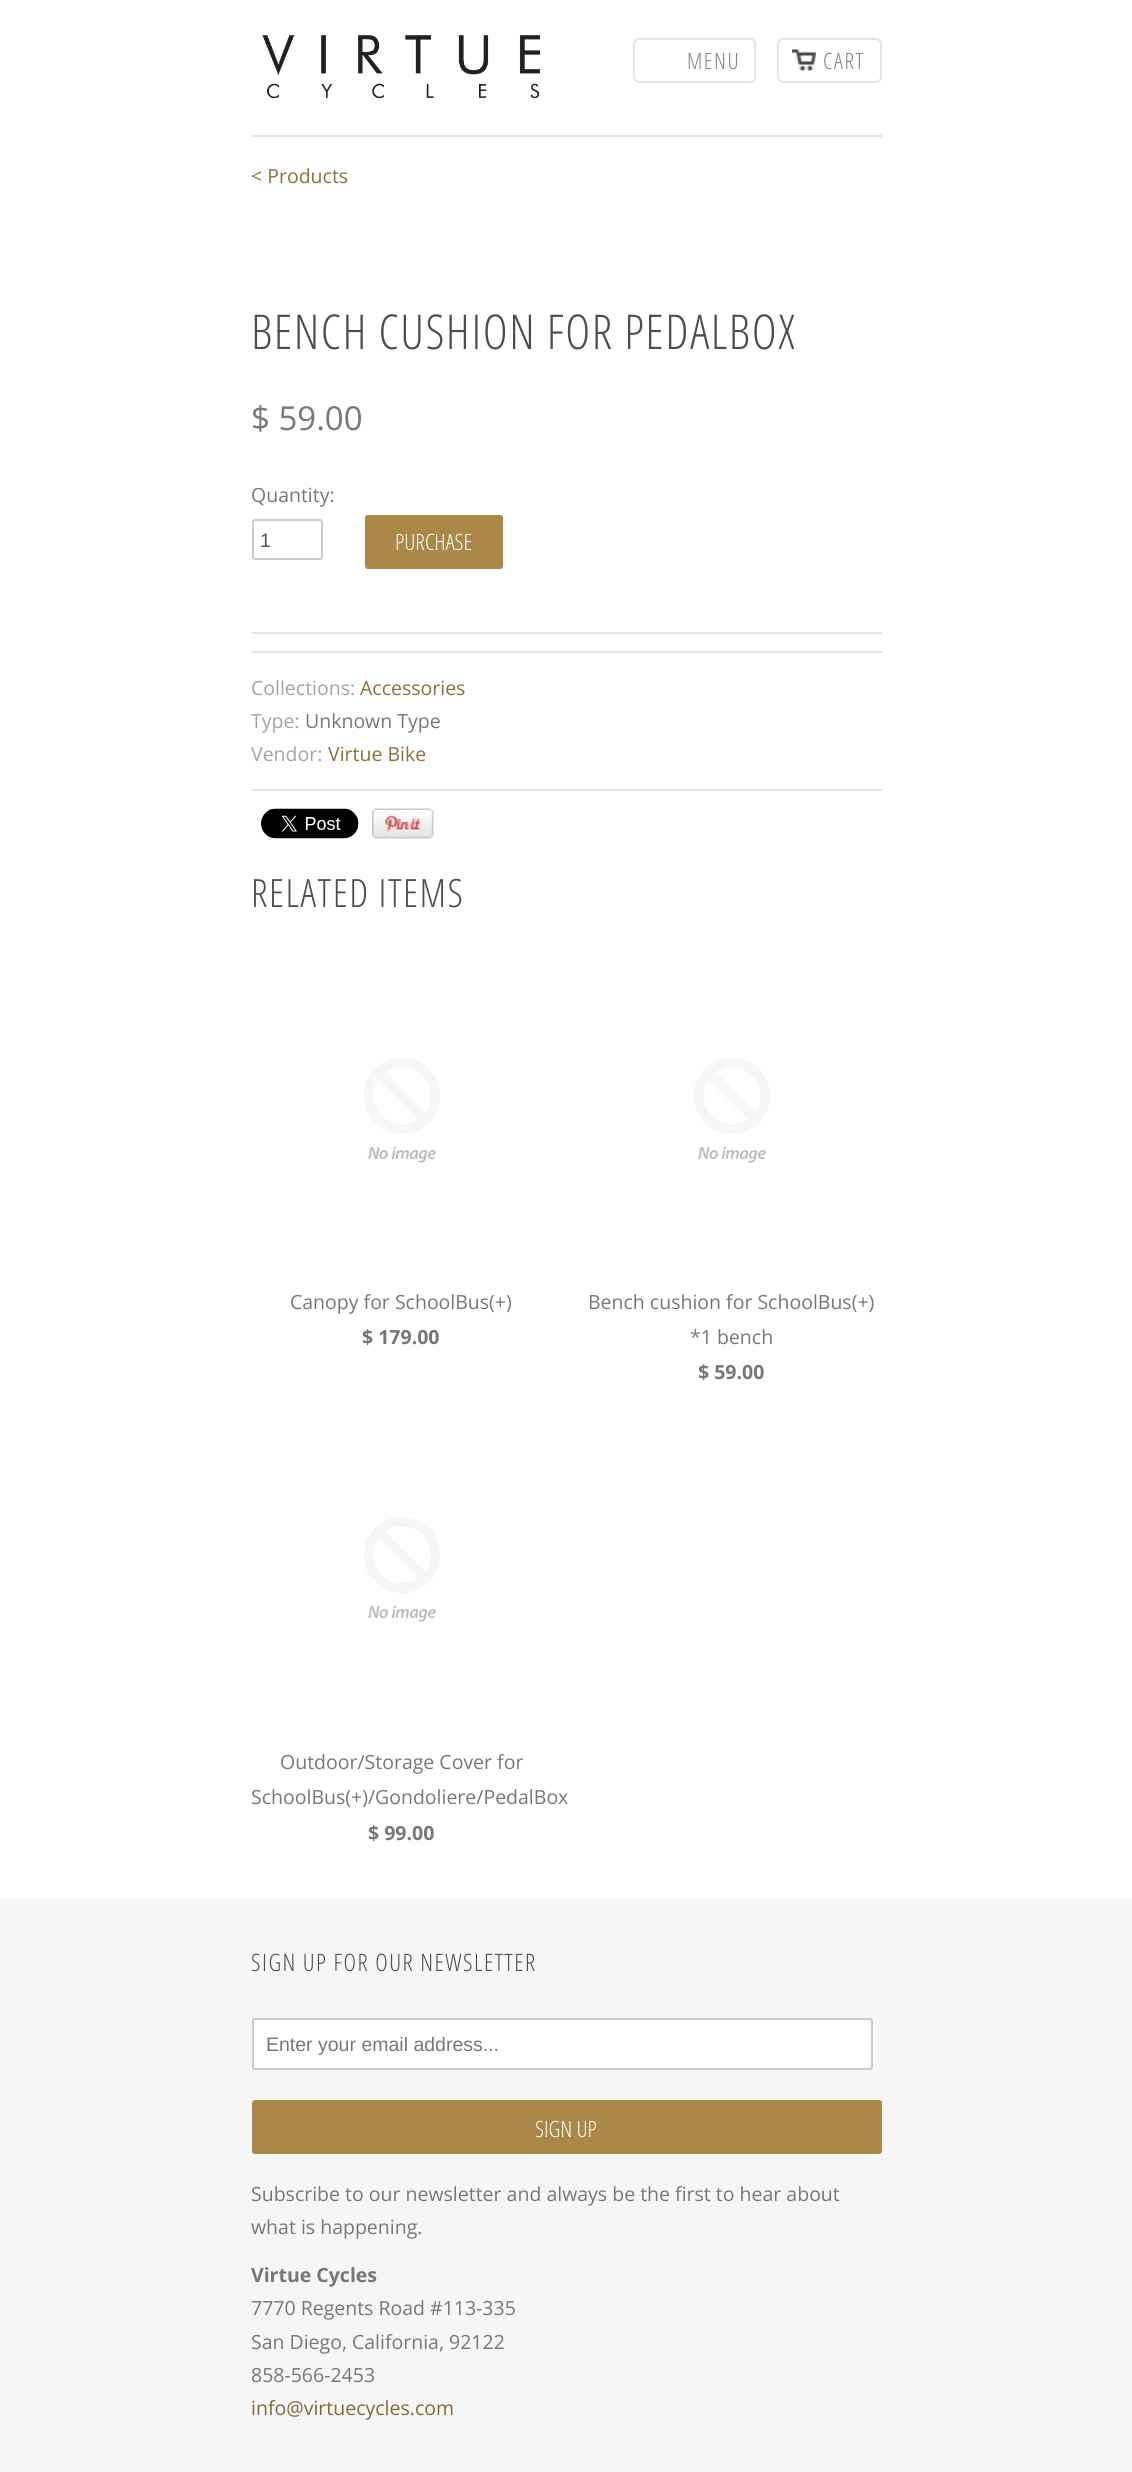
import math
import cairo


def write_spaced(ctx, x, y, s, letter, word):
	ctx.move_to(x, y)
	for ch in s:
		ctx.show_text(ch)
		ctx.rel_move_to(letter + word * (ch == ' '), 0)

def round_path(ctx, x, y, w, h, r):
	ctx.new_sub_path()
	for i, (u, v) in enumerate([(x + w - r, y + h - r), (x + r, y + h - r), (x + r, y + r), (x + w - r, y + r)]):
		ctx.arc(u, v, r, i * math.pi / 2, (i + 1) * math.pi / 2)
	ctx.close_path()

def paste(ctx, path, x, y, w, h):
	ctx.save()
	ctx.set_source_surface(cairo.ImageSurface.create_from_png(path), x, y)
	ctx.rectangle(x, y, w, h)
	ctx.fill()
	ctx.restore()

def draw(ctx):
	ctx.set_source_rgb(1, 1, 1)
	ctx.paint()
	ctx.set_source_rgb(0.894, 0.894, 0.894)
	ctx.rectangle(252, 135, 630, 2)
	ctx.fill()
	paste(ctx, 'media/1.png', 262, 35, 278, 64)
	round_path(ctx, 634, 39, 121, 43, 5)
	ctx.stroke()
	ctx.select_font_face('Open Sans Condensed Light')
	ctx.set_font_size(22.5)
	ctx.set_source_rgb(0.502, 0.502, 0.502)
	write_spaced(ctx, 687, 69, 'MENU', 1.5, 0)
	paste(ctx, 'media/2.png', 792, 49, 24, 22)
	round_path(ctx, 778, 39, 103, 43, 5)
	ctx.set_source_rgb(0.894, 0.894, 0.894)
	ctx.stroke()
	ctx.set_source_rgb(0.502, 0.502, 0.502)
	write_spaced(ctx, 823, 69, 'CART', 1.5, 0)
	ctx.select_font_face('Open Sans')
	ctx.set_font_size(19.5)
	ctx.set_source_rgb(0.549, 0.439, 0.231)
	ctx.move_to(251, 183)
	ctx.show_text('< Products')
	ctx.select_font_face('Open Sans Condensed Light')
	ctx.set_font_size(48)
	ctx.set_source_rgb(0.302, 0.302, 0.302)
	write_spaced(ctx, 251, 349, 'BENCH CUSHION FOR PEDALBOX', 1.5, 0)
	ctx.select_font_face('Open Sans')
	ctx.set_font_size(33)
	ctx.set_source_rgb(0.467, 0.467, 0.467)
	ctx.move_to(251, 430)
	ctx.show_text('$ 59.00')
	ctx.set_font_size(19.5)
	ctx.move_to(251, 502)
	ctx.show_text('Quantity:')
	round_path(ctx, 253, 520, 69, 39, 2)
	ctx.set_source_rgb(0.8, 0.8, 0.8)
	ctx.stroke()
	ctx.select_font_face('Liberation Sans')
	ctx.set_source_rgb(0.333, 0.333, 0.333)
	ctx.move_to(260, 547)
	ctx.show_text('1')
	ctx.set_source_rgb(0.671, 0.533, 0.282)
	round_path(ctx, 365, 515, 138, 54, 3)
	ctx.fill()
	ctx.select_font_face('Open Sans Condensed Light')
	ctx.set_font_size(22.5)
	ctx.set_source_rgb(1, 1, 1)
	ctx.move_to(395, 550)
	ctx.show_text('PURCHASE')
	ctx.set_source_rgb(0.894, 0.894, 0.894)
	ctx.rectangle(252, 632, 630, 2)
	ctx.fill()
	ctx.rectangle(252, 651, 630, 2)
	ctx.fill()
	ctx.select_font_face('Open Sans')
	ctx.set_font_size(19.5)
	ctx.set_source_rgb(0.616, 0.651, 0.682)
	ctx.move_to(251, 695)
	ctx.show_text('Collections:')
	ctx.set_source_rgb(0.549, 0.439, 0.231)
	ctx.move_to(360, 695)
	ctx.show_text('Accessories')
	ctx.set_source_rgb(0.616, 0.651, 0.682)
	ctx.move_to(251, 728)
	ctx.show_text('Type:')
	ctx.set_source_rgb(0.467, 0.467, 0.467)
	ctx.move_to(305, 728)
	ctx.show_text('Unknown Type')
	ctx.set_source_rgb(0.616, 0.651, 0.682)
	ctx.move_to(251, 761)
	ctx.show_text('Vendor:')
	ctx.set_source_rgb(0.549, 0.439, 0.231)
	ctx.move_to(328, 761)
	ctx.show_text('Virtue Bike')
	ctx.set_source_rgb(0.894, 0.894, 0.894)
	ctx.rectangle(252, 789, 630, 2)
	ctx.fill()
	paste(ctx, 'media/3.png', 261, 808, 98, 31)
	paste(ctx, 'media/4.png', 372, 808, 62, 31)
	ctx.select_font_face('Open Sans Condensed Light')
	ctx.set_font_size(39)
	ctx.set_source_rgb(0.302, 0.302, 0.302)
	write_spaced(ctx, 251, 907, 'RELATED ITEMS', 1.5, 0)
	paste(ctx, 'media/5.png', 364, 1058, 76, 105)
	ctx.select_font_face('Open Sans')
	ctx.set_font_size(19.5)
	ctx.set_source_rgb(0.467, 0.467, 0.467)
	ctx.move_to(290, 1309)
	ctx.show_text('Canopy for SchoolBus(+)')
	ctx.select_font_face('Open Sans', cairo.FONT_SLANT_NORMAL, cairo.FONT_WEIGHT_BOLD)
	ctx.move_to(362, 1344)
	ctx.show_text('$ 179.00')
	paste(ctx, 'media/6.png', 694, 1058, 76, 105)
	ctx.select_font_face('Open Sans')
	ctx.move_to(588, 1309)
	ctx.show_text('Bench cushion for SchoolBus(+)')
	ctx.move_to(690, 1344)
	ctx.show_text('*1 bench')
	ctx.select_font_face('Open Sans', cairo.FONT_SLANT_NORMAL, cairo.FONT_WEIGHT_BOLD)
	ctx.move_to(698, 1379)
	ctx.show_text('$ 59.00')
	paste(ctx, 'media/7.png', 364, 1517, 76, 105)
	ctx.select_font_face('Open Sans')
	ctx.move_to(280, 1769)
	ctx.show_text('Outdoor/Storage Cover for')
	ctx.move_to(251, 1804)
	ctx.show_text('SchoolBus(+)/Gondoliere/PedalBox')
	ctx.select_font_face('Open Sans', cairo.FONT_SLANT_NORMAL, cairo.FONT_WEIGHT_BOLD)
	ctx.move_to(368, 1840)
	ctx.show_text('$ 99.00')
	ctx.set_source_rgb(0.961, 0.961, 0.961)
	ctx.rectangle(0, 1899, 1132, 573)
	ctx.fill()
	ctx.select_font_face('Open Sans Condensed Light')
	ctx.set_font_size(24)
	ctx.set_source_rgb(0.302, 0.302, 0.302)
	write_spaced(ctx, 251, 1971, 'SIGN UP FOR OUR NEWSLETTER', 1.5, 0)
	ctx.set_source_rgb(1, 1, 1)
	round_path(ctx, 253, 2019, 619, 50, 2)
	ctx.fill_preserve()
	ctx.set_source_rgb(0.8, 0.8, 0.8)
	ctx.stroke()
	ctx.select_font_face('Liberation Sans')
	ctx.set_font_size(19.5)
	ctx.set_source_rgb(0.467, 0.467, 0.467)
	ctx.move_to(266, 2051)
	ctx.show_text('Enter your email address...')
	ctx.set_source_rgb(0.671, 0.533, 0.282)
	round_path(ctx, 252, 2100, 630, 54, 3)
	ctx.fill()
	ctx.select_font_face('Open Sans Condensed Light')
	ctx.set_font_size(22.5)
	ctx.set_source_rgb(1, 1, 1)
	ctx.move_to(535, 2137)
	ctx.show_text('SIGN UP')
	ctx.select_font_face('Open Sans')
	ctx.set_font_size(19.5)
	ctx.set_source_rgb(0.467, 0.467, 0.467)
	ctx.move_to(251, 2201)
	ctx.show_text('Subscribe to our newsletter and always be the first to hear about')
	ctx.move_to(251, 2234)
	ctx.show_text('what is happening.')
	ctx.select_font_face('Open Sans', cairo.FONT_SLANT_NORMAL, cairo.FONT_WEIGHT_BOLD)
	ctx.move_to(251, 2282)
	ctx.show_text('Virtue Cycles')
	ctx.select_font_face('Open Sans')
	for x, y, s in [
		(251, 2315, '7770 Regents Road #113-335'),
		(251, 2349, 'San Diego, California, 92122'),
		(251, 2382, '858-566-2453'),
	]:
		ctx.move_to(x, y)
		ctx.show_text(s)
	ctx.set_source_rgb(0.51, 0.412, 0.204)
	ctx.move_to(251, 2415)
	ctx.show_text('info@virtuecycles.com')


surface = cairo.ImageSurface(cairo.FORMAT_RGB24, 1132, 2472)
ctx = cairo.Context(surface)
options = cairo.FontOptions()
options.set_hint_metrics(cairo.HINT_METRICS_OFF)
options.set_hint_style(cairo.HINT_STYLE_NONE)
ctx.set_font_options(options)
ctx.set_miter_limit(4)
draw(ctx)
surface.write_to_png('image.png')
